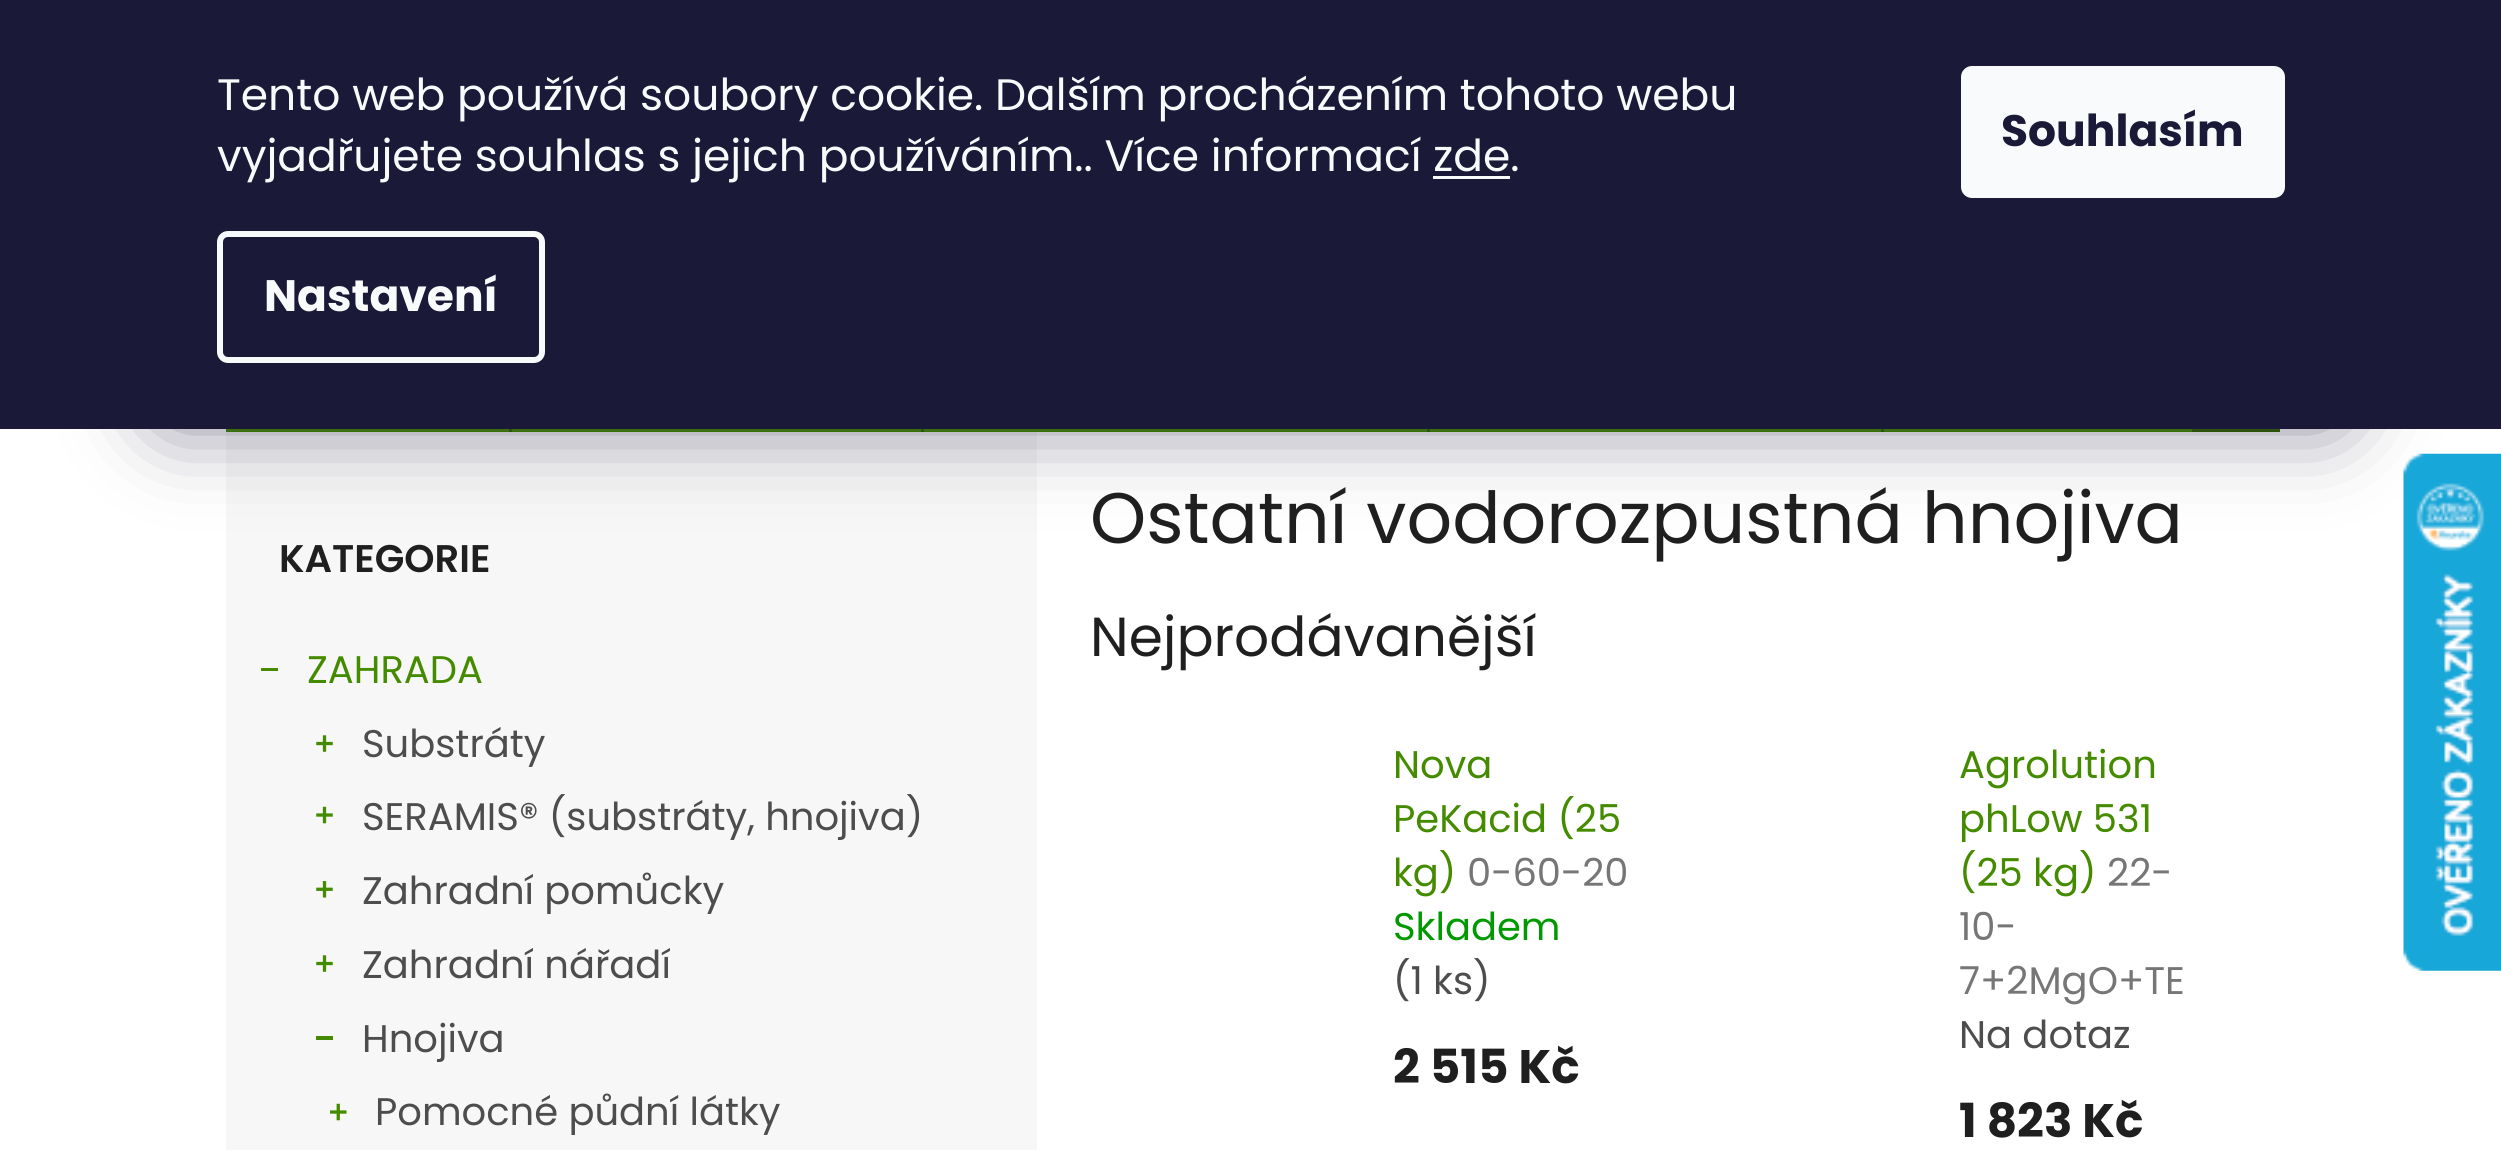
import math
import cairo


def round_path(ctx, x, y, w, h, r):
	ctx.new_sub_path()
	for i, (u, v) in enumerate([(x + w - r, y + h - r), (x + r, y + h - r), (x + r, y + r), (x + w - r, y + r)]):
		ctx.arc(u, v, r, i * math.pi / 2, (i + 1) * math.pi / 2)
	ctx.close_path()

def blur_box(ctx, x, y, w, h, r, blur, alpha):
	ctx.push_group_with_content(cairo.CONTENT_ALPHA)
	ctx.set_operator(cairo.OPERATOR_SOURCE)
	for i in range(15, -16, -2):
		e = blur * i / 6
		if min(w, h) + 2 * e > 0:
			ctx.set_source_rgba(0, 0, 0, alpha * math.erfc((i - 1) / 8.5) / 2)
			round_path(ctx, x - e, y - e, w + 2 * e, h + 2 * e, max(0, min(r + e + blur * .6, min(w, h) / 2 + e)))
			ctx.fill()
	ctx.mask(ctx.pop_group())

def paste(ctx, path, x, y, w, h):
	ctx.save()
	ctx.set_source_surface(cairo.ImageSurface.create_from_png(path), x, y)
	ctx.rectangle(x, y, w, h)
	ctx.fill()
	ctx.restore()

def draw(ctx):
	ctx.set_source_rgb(1, 1, 1)
	ctx.paint()
	ctx.set_source_rgb(0.102, 0.098, 0.216)
	ctx.rectangle(0, 0, 2501, 429)
	ctx.fill()
	ctx.set_source_rgb(0.271, 0.545, 0)
	ctx.rectangle(226, 429, 1966, 3)
	ctx.fill()
	ctx.set_source_rgb(0.2, 0.4, 0)
	ctx.rectangle(509, 429, 3, 3)
	ctx.rectangle(921, 429, 3, 3)
	ctx.rectangle(1427, 429, 3, 3)
	ctx.rectangle(1881, 429, 3, 3)
	ctx.rectangle(2192, 429, 88, 3)
	ctx.fill()
	ctx.set_source_rgb(0.965, 0.965, 0.965)
	ctx.rectangle(226, 432, 811, 718)
	ctx.fill()
	ctx.save()
	ctx.set_fill_rule(cairo.FILL_RULE_EVEN_ODD)
	ctx.new_path()
	ctx.move_to(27, 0)
	ctx.line_to(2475, 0)
	ctx.line_to(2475, 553)
	ctx.line_to(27, 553)
	ctx.close_path()
	ctx.move_to(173, 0)
	ctx.line_to(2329, 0)
	ctx.curve_to(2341, 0, 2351, 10, 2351, 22)
	ctx.line_to(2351, 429)
	ctx.line_to(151, 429)
	ctx.line_to(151, 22)
	ctx.curve_to(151, 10, 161, 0, 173, 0)
	ctx.close_path()
	ctx.clip()
	ctx.set_source_rgb(0.106, 0.098, 0.224)
	blur_box(ctx, 151, 0, 2200, 429, 22, 41, 0.5)
	ctx.restore()
	ctx.select_font_face('Poppins')
	ctx.set_font_size(44)
	ctx.set_source_rgb(0.973, 0.98, 0.984)
	ctx.move_to(217, 110)
	ctx.show_text('Tento web používá soubory cookie. Dalším procházením tohoto webu')
	ctx.move_to(217, 171)
	ctx.show_text('vyjadřujete souhlas s jejich používáním.. Více informací zde.')
	ctx.rectangle(1433, 176, 77, 3)
	ctx.fill()
	round_path(ctx, 220, 234, 322, 126, 8)
	ctx.set_line_width(6)
	ctx.stroke()
	ctx.select_font_face('Poppins', cairo.FONT_SLANT_NORMAL, cairo.FONT_WEIGHT_BOLD)
	ctx.move_to(264, 311)
	ctx.show_text('Nastavení')
	round_path(ctx, 1961, 66, 324, 132, 11)
	ctx.fill()
	ctx.set_source_rgb(0.102, 0.098, 0.216)
	ctx.move_to(2001, 146)
	ctx.show_text('Souhlasím')
	ctx.select_font_face('Poppins SemiBold')
	ctx.set_font_size(38.5)
	ctx.set_source_rgb(0.122, 0.122, 0.122)
	ctx.move_to(279, 572)
	ctx.show_text('KATEGORIE')
	ctx.set_source_rgb(0.271, 0.545, 0)
	ctx.rectangle(261, 668, 17, 3)
	ctx.fill()
	ctx.select_font_face('Poppins')
	ctx.move_to(307, 683)
	ctx.show_text('ZAHRADA')
	paste(ctx, 'media/1.png', 316, 735, 17, 17)
	ctx.set_source_rgb(0.302, 0.302, 0.302)
	ctx.move_to(362, 757)
	ctx.show_text('Substráty')
	paste(ctx, 'media/2.png', 316, 806, 17, 18)
	ctx.move_to(362, 830)
	ctx.show_text('SERAMIS® (substráty, hnojiva)')
	paste(ctx, 'media/3.png', 316, 881, 17, 17)
	ctx.move_to(362, 904)
	ctx.show_text('Zahradní pomůcky')
	paste(ctx, 'media/1.png', 316, 955, 17, 17)
	ctx.move_to(362, 978)
	ctx.show_text('Zahradní nářadí')
	ctx.set_source_rgb(0.271, 0.545, 0)
	ctx.rectangle(316, 1036, 17, 4)
	ctx.fill()
	ctx.set_source_rgb(0.302, 0.302, 0.302)
	ctx.move_to(362, 1052)
	ctx.show_text('Hnojiva')
	paste(ctx, 'media/4.png', 330, 1103, 17, 18)
	ctx.move_to(375, 1125)
	ctx.show_text('Pomocné půdní látky')
	ctx.set_font_size(71.5)
	ctx.set_source_rgb(0.122, 0.122, 0.122)
	ctx.move_to(1090, 543)
	ctx.show_text('Ostatní vodorozpustná hnojiva')
	ctx.set_font_size(55)
	ctx.move_to(1090, 656)
	ctx.show_text('Nejprodávanější')
	ctx.set_font_size(38.5)
	ctx.set_source_rgb(0.271, 0.545, 0)
	for x, y, s in [
		(1393, 778, 'Nova'),
		(1393, 832, 'PeKacid (25'),
		(1393, 886, 'kg)'),
	]:
		ctx.move_to(x, y)
		ctx.show_text(s)
	ctx.set_source_rgb(0.463, 0.463, 0.463)
	ctx.move_to(1467, 886)
	ctx.show_text('0-60-20')
	ctx.set_source_rgb(0, 0.6, 0.004)
	ctx.move_to(1393, 940)
	ctx.show_text('Skladem')
	ctx.set_source_rgb(0.302, 0.302, 0.302)
	ctx.move_to(1393, 994)
	ctx.show_text('(1 ks)')
	ctx.select_font_face('Poppins', cairo.FONT_SLANT_NORMAL, cairo.FONT_WEIGHT_BOLD)
	ctx.set_font_size(47)
	ctx.set_source_rgb(0.122, 0.122, 0.122)
	ctx.move_to(1393, 1083)
	ctx.show_text('2 515 Kč')
	ctx.select_font_face('Poppins')
	ctx.set_font_size(38.5)
	ctx.set_source_rgb(0.271, 0.545, 0)
	for x, y, s in [
		(1959, 778, 'Agrolution'),
		(1959, 832, 'phLow 531'),
		(1959, 886, '(25 kg)'),
	]:
		ctx.move_to(x, y)
		ctx.show_text(s)
	ctx.set_source_rgb(0.463, 0.463, 0.463)
	for x, y, s in [
		(2107, 886, '22-'),
		(1959, 940, '10-'),
		(1959, 994, '7+2MgO+TE'),
	]:
		ctx.move_to(x, y)
		ctx.show_text(s)
	ctx.set_source_rgb(0.302, 0.302, 0.302)
	ctx.move_to(1959, 1048)
	ctx.show_text('Na dotaz')
	ctx.select_font_face('Poppins', cairo.FONT_SLANT_NORMAL, cairo.FONT_WEIGHT_BOLD)
	ctx.set_font_size(47)
	ctx.set_source_rgb(0.122, 0.122, 0.122)
	ctx.move_to(1959, 1137)
	ctx.show_text('1 823 Kč')
	paste(ctx, 'media/5.png', 2403, 453, 98, 518)


surface = cairo.ImageSurface(cairo.FORMAT_RGB24, 2501, 1150)
ctx = cairo.Context(surface)
options = cairo.FontOptions()
options.set_hint_metrics(cairo.HINT_METRICS_OFF)
options.set_hint_style(cairo.HINT_STYLE_NONE)
ctx.set_font_options(options)
ctx.set_miter_limit(4)
draw(ctx)
surface.write_to_png('image.png')
